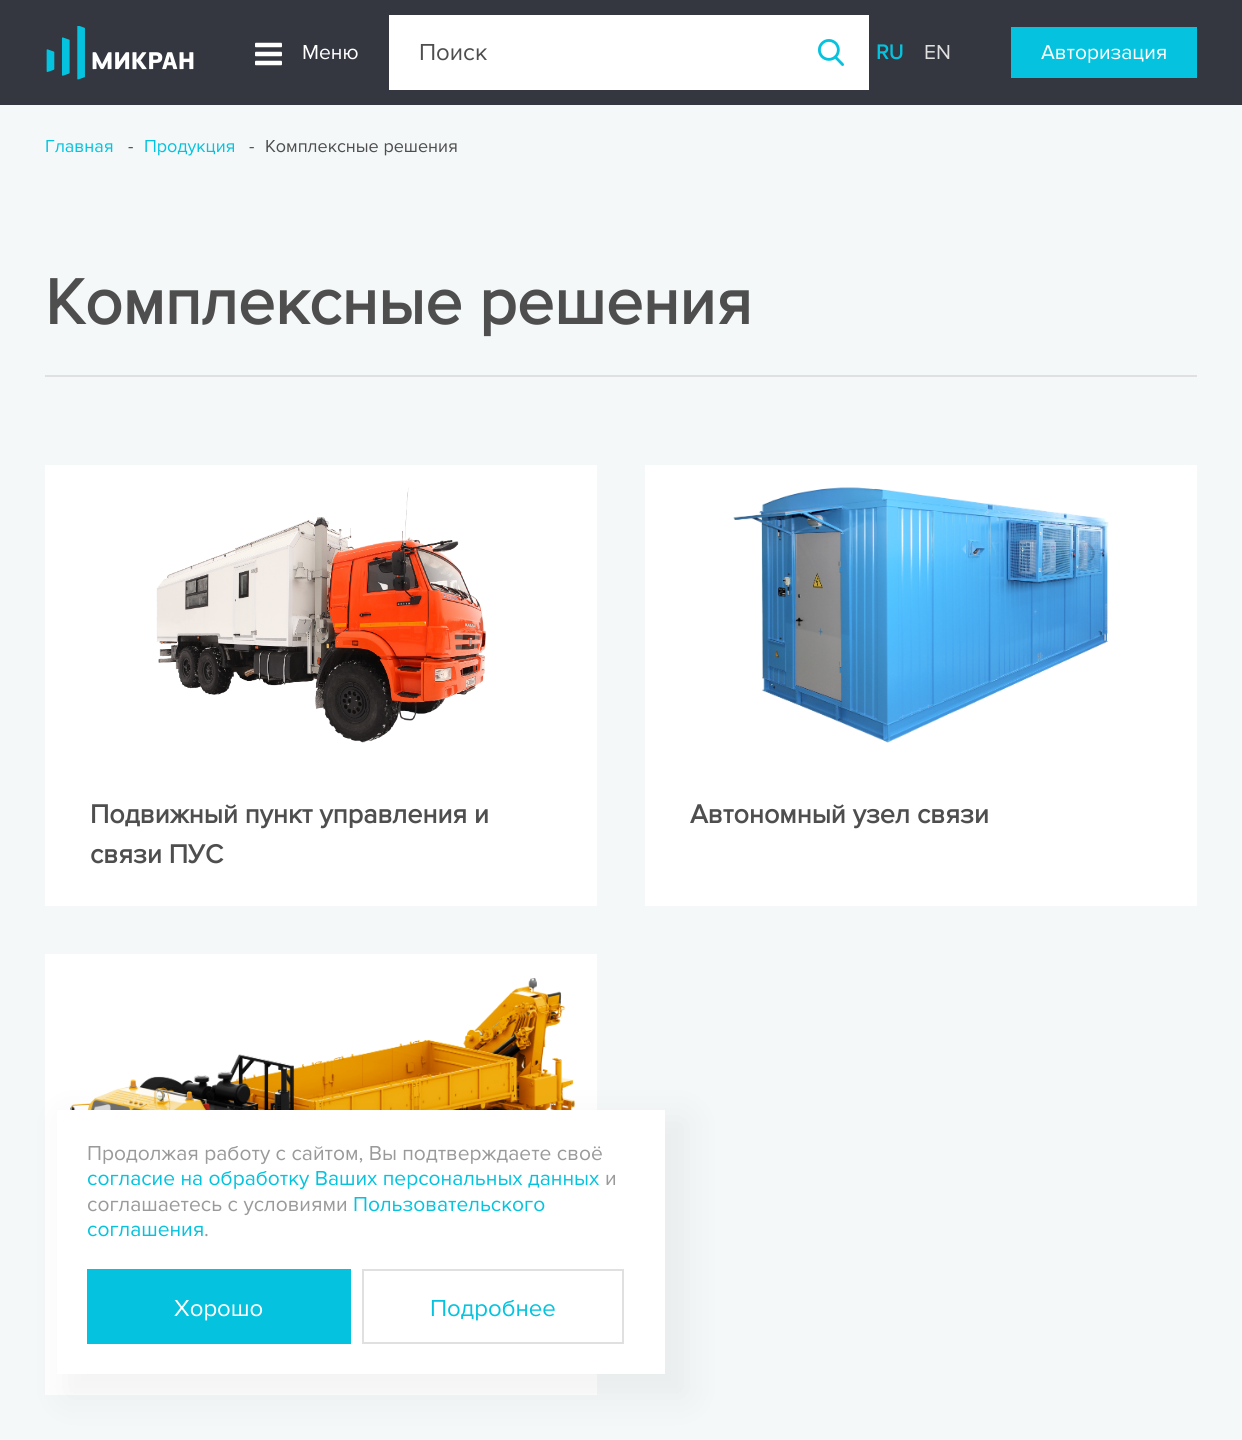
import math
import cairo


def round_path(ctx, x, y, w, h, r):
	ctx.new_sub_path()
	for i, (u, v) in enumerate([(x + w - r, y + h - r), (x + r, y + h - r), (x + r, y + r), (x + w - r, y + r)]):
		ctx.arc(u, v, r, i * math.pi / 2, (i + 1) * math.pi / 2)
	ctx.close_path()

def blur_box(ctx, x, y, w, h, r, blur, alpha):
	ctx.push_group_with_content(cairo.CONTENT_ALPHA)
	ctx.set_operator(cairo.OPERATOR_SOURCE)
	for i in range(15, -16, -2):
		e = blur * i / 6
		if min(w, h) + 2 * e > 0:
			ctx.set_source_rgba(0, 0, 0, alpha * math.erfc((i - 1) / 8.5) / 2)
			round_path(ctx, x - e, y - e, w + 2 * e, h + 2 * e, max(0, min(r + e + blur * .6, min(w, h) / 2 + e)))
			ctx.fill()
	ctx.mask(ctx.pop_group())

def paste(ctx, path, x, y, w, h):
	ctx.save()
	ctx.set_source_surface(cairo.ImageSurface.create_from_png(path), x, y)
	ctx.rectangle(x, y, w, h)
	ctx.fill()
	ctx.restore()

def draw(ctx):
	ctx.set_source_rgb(0.957, 0.969, 0.976)
	ctx.paint()
	ctx.set_source_rgb(0.204, 0.212, 0.251)
	ctx.rectangle(0, 0, 1242, 105)
	ctx.fill()
	paste(ctx, 'media/1.png', 46, 26, 148, 54)
	paste(ctx, 'media/2.png', 255, 42, 27, 24)
	ctx.select_font_face('Proxima Nova')
	ctx.set_font_size(21)
	ctx.set_source_rgb(1, 1, 1)
	ctx.move_to(302, 59)
	ctx.show_text('Меню')
	ctx.rectangle(389, 15, 480, 75)
	ctx.fill()
	ctx.set_font_size(24)
	ctx.set_source_rgb(0.306, 0.306, 0.306)
	ctx.move_to(419, 60)
	ctx.show_text('Поиск')
	paste(ctx, 'media/3.png', 818, 39, 26, 27)
	ctx.select_font_face('Proxima Nova', cairo.FONT_SLANT_NORMAL, cairo.FONT_WEIGHT_BOLD)
	ctx.set_font_size(21)
	ctx.set_source_rgb(0.02, 0.765, 0.871)
	ctx.move_to(876, 59)
	ctx.show_text('RU')
	ctx.select_font_face('Proxima Nova')
	ctx.set_source_rgb(0.878, 0.878, 0.878)
	ctx.move_to(924, 59)
	ctx.show_text('EN')
	ctx.set_source_rgb(0.02, 0.765, 0.871)
	ctx.rectangle(1011, 27, 186, 51)
	ctx.fill()
	ctx.set_source_rgb(1, 1, 1)
	ctx.move_to(1041, 59)
	ctx.show_text('Авторизация')
	ctx.set_font_size(18)
	ctx.set_source_rgb(0.02, 0.765, 0.871)
	ctx.move_to(45, 152)
	ctx.show_text('Главная')
	ctx.set_source_rgb(0.306, 0.306, 0.306)
	ctx.move_to(128, 152)
	ctx.show_text('-')
	ctx.set_source_rgb(0.02, 0.765, 0.871)
	ctx.move_to(144, 152)
	ctx.show_text('Продукция')
	ctx.set_source_rgb(0.306, 0.306, 0.306)
	ctx.move_to(249, 152)
	ctx.show_text('-')
	ctx.move_to(265, 152)
	ctx.show_text('Комплексные решения')
	ctx.set_source_rgb(0.878, 0.878, 0.878)
	ctx.rectangle(45, 375, 1152, 2)
	ctx.fill()
	ctx.select_font_face('Proxima Nova', cairo.FONT_SLANT_NORMAL, cairo.FONT_WEIGHT_BOLD)
	ctx.set_font_size(66)
	ctx.set_source_rgb(0.306, 0.306, 0.306)
	ctx.move_to(45, 324)
	ctx.show_text('Комплексные решения')
	ctx.set_source_rgb(1, 1, 1)
	ctx.rectangle(45, 465, 552, 441)
	ctx.fill()
	paste(ctx, 'media/4.png', 156, 487, 330, 256)
	ctx.set_font_size(27)
	ctx.set_source_rgb(0.306, 0.306, 0.306)
	ctx.move_to(90, 823)
	ctx.show_text('Подвижный пункт управления и')
	ctx.move_to(90, 863)
	ctx.show_text('связи ПУС')
	ctx.set_source_rgb(1, 1, 1)
	ctx.rectangle(645, 465, 552, 441)
	ctx.fill()
	paste(ctx, 'media/5.png', 733, 487, 376, 256)
	ctx.set_source_rgb(0.306, 0.306, 0.306)
	ctx.move_to(690, 823)
	ctx.show_text('Автономный узел связи')
	ctx.set_source_rgb(1, 1, 1)
	ctx.rectangle(45, 954, 552, 441)
	ctx.fill()
	paste(ctx, 'media/6.png', 70, 978, 505, 132)
	ctx.set_source_rgb(0, 0, 0)
	blur_box(ctx, 65, 1118, 622, 279, 0, 19, 0.05)
	ctx.set_source_rgb(1, 1, 1)
	ctx.rectangle(57, 1110, 608, 264)
	ctx.fill()
	ctx.select_font_face('Proxima Nova')
	ctx.set_font_size(21)
	ctx.set_source_rgb(0.604, 0.604, 0.604)
	ctx.move_to(87, 1160)
	ctx.show_text('Продолжая работу с сайтом, Вы подтверждаете своё')
	ctx.set_source_rgb(0.02, 0.765, 0.871)
	ctx.move_to(87, 1185)
	ctx.show_text('согласие на обработку Ваших персональных данных')
	ctx.set_source_rgb(0.604, 0.604, 0.604)
	ctx.move_to(605, 1185)
	ctx.show_text('и')
	ctx.move_to(87, 1211)
	ctx.show_text('соглашаетесь с условиями')
	ctx.set_source_rgb(0.02, 0.765, 0.871)
	ctx.move_to(353, 1211)
	ctx.show_text('Пользовательского')
	ctx.move_to(87, 1236)
	ctx.show_text('соглашения')
	ctx.set_source_rgb(0.604, 0.604, 0.604)
	ctx.move_to(204, 1236)
	ctx.show_text('.')
	ctx.set_source_rgb(0.02, 0.765, 0.871)
	ctx.rectangle(87, 1269, 264, 75)
	ctx.fill()
	ctx.set_font_size(24)
	ctx.set_source_rgb(1, 1, 1)
	ctx.move_to(174, 1316)
	ctx.show_text('Хорошо')
	ctx.rectangle(363, 1270, 260, 73)
	ctx.set_source_rgb(0.878, 0.878, 0.878)
	ctx.stroke()
	ctx.set_source_rgb(0.02, 0.765, 0.871)
	ctx.move_to(430, 1316)
	ctx.show_text('Подробнее')


surface = cairo.ImageSurface(cairo.FORMAT_RGB24, 1242, 1440)
ctx = cairo.Context(surface)
options = cairo.FontOptions()
options.set_hint_metrics(cairo.HINT_METRICS_OFF)
options.set_hint_style(cairo.HINT_STYLE_NONE)
ctx.set_font_options(options)
ctx.set_miter_limit(4)
draw(ctx)
surface.write_to_png('image.png')
